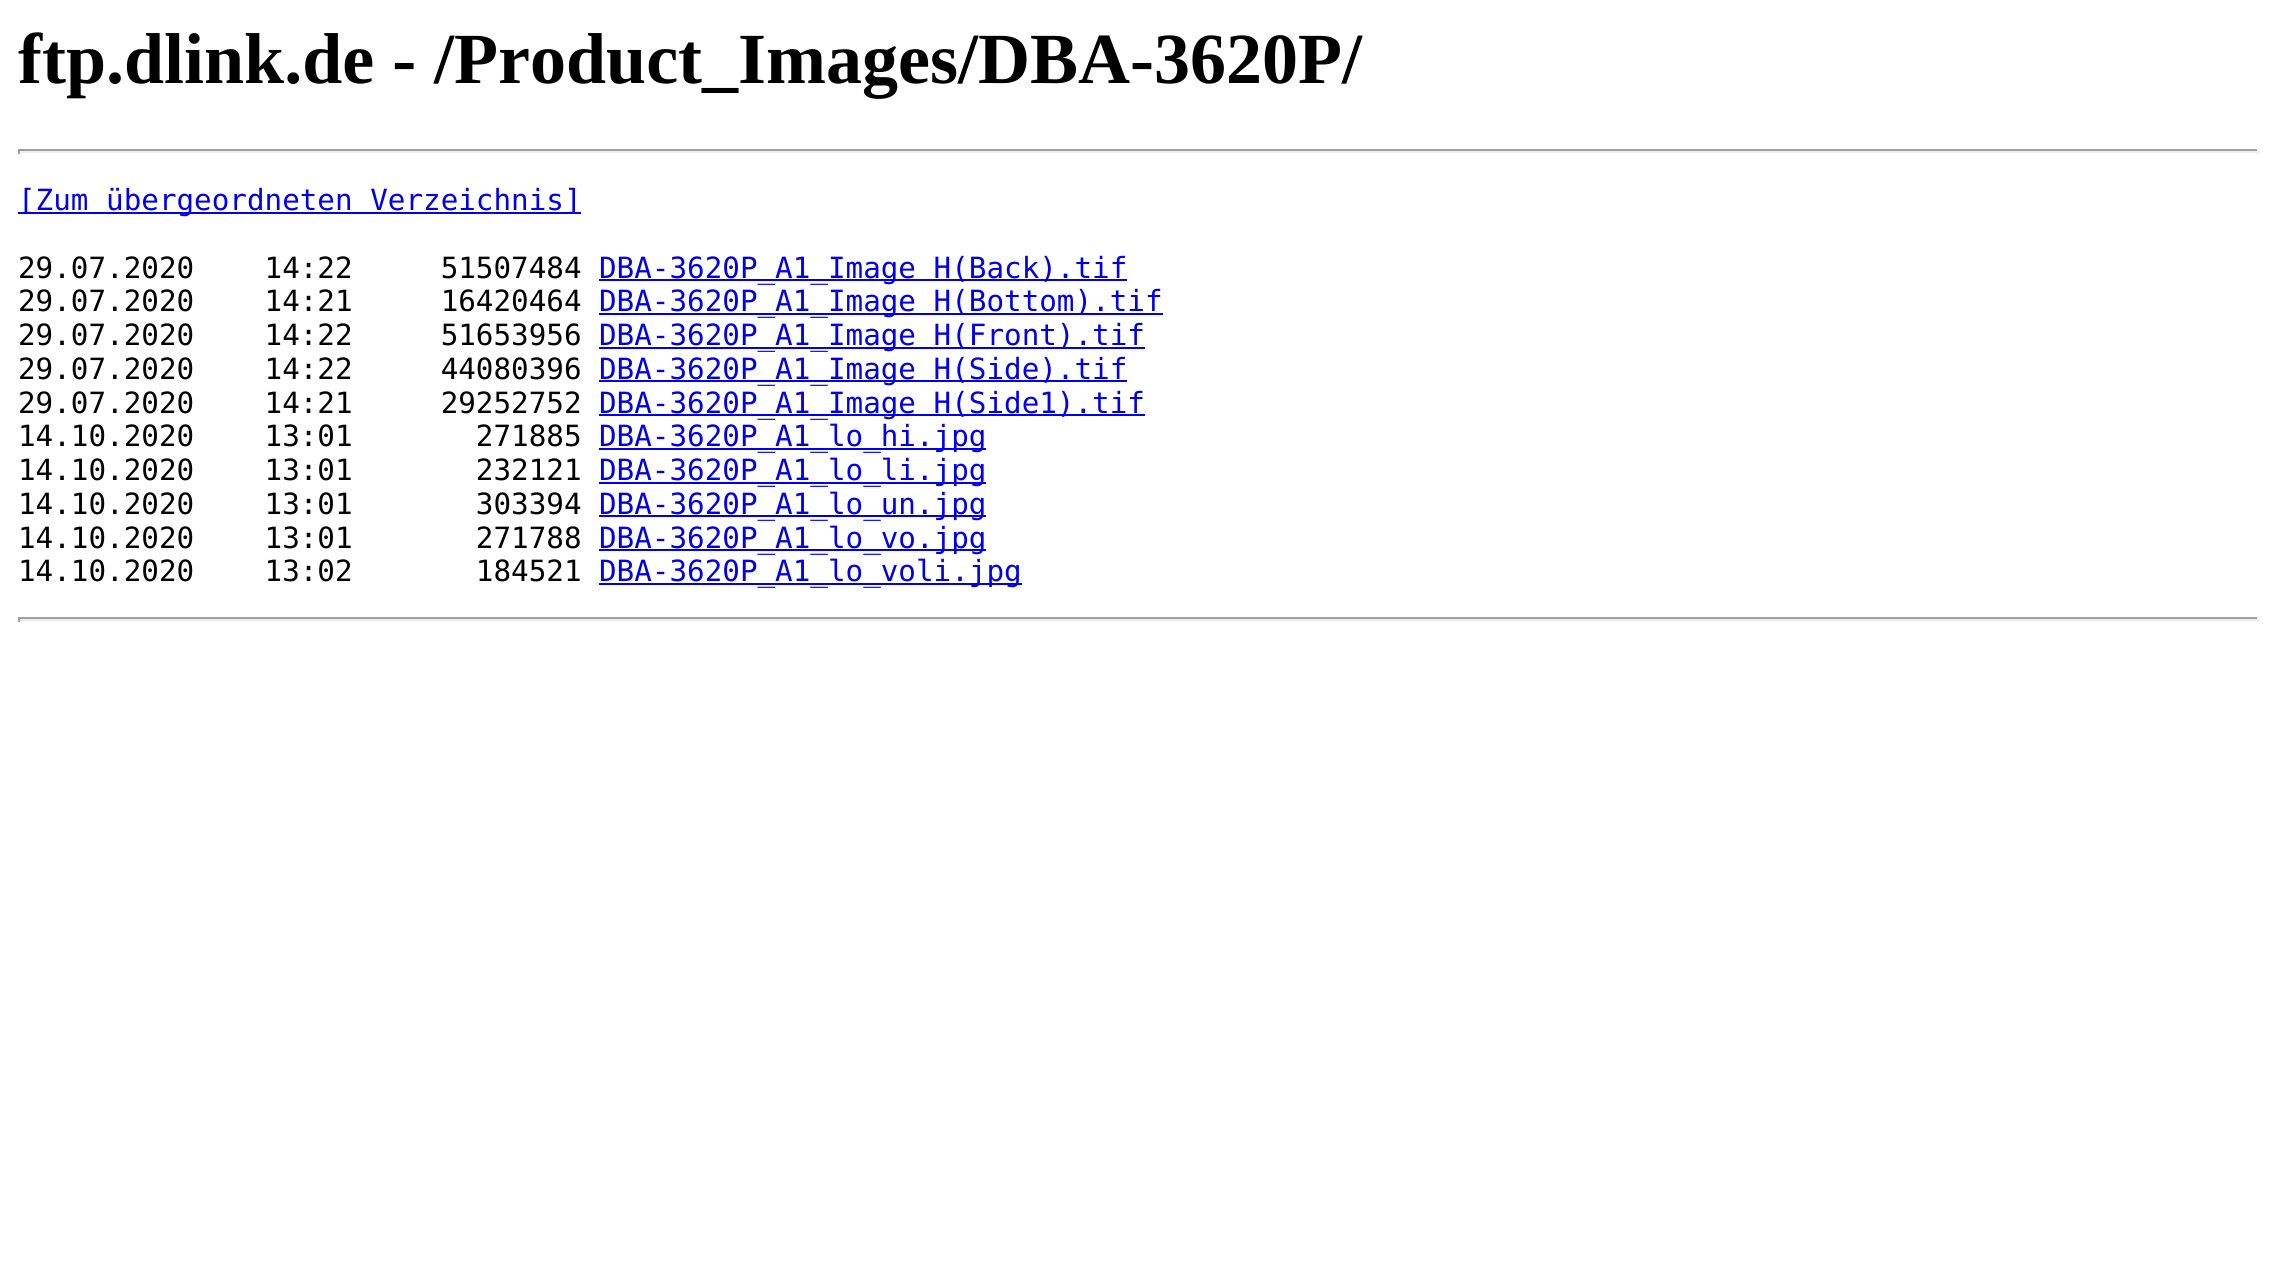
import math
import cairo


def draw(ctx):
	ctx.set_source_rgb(1, 1, 1)
	ctx.paint()
	ctx.select_font_face('Liberation Serif', cairo.FONT_SLANT_NORMAL, cairo.FONT_WEIGHT_BOLD)
	ctx.set_font_size(72)
	ctx.set_source_rgb(0, 0, 0)
	ctx.move_to(18, 83)
	ctx.show_text('ftp.dlink.de - /Product_Images/DBA-3620P/')
	ctx.set_source_rgb(0.624, 0.624, 0.624)
	ctx.rectangle(18, 149, 2241, 2)
	ctx.fill()
	ctx.set_source_rgb(0.933, 0.933, 0.933)
	ctx.rectangle(2257, 149, 2, 5)
	ctx.rectangle(18, 151, 2241, 2)
	ctx.fill()
	ctx.set_source_rgb(0.624, 0.624, 0.624)
	ctx.rectangle(18, 149, 2, 5)
	ctx.fill()
	ctx.set_source_rgb(0, 0, 0.933)
	ctx.rectangle(18, 212, 563, 2)
	ctx.fill()
	ctx.select_font_face('DejaVu Sans Mono')
	ctx.set_font_size(29.25)
	ctx.move_to(18, 210)
	ctx.show_text('[Zum übergeordneten Verzeichnis]')
	ctx.set_source_rgb(0, 0, 0)
	ctx.move_to(18, 278)
	ctx.show_text('29.07.2020    14:22     51507484')
	ctx.set_source_rgb(0, 0, 0.933)
	ctx.rectangle(599, 279, 528, 2)
	ctx.fill()
	ctx.move_to(599, 278)
	ctx.show_text('DBA-3620P_A1_Image H(Back).tif')
	ctx.set_source_rgb(0, 0, 0)
	ctx.move_to(18, 311)
	ctx.show_text('29.07.2020    14:21     16420464')
	ctx.set_source_rgb(0, 0, 0.933)
	ctx.rectangle(599, 313, 564, 2)
	ctx.fill()
	ctx.move_to(599, 311)
	ctx.show_text('DBA-3620P_A1_Image H(Bottom).tif')
	ctx.set_source_rgb(0, 0, 0)
	ctx.move_to(18, 345)
	ctx.show_text('29.07.2020    14:22     51653956')
	ctx.set_source_rgb(0, 0, 0.933)
	ctx.rectangle(599, 347, 546, 2)
	ctx.fill()
	ctx.move_to(599, 345)
	ctx.show_text('DBA-3620P_A1_Image H(Front).tif')
	ctx.set_source_rgb(0, 0, 0)
	ctx.move_to(18, 379)
	ctx.show_text('29.07.2020    14:22     44080396')
	ctx.set_source_rgb(0, 0, 0.933)
	ctx.rectangle(599, 380, 528, 2)
	ctx.fill()
	ctx.move_to(599, 379)
	ctx.show_text('DBA-3620P_A1_Image H(Side).tif')
	ctx.set_source_rgb(0, 0, 0)
	ctx.move_to(18, 413)
	ctx.show_text('29.07.2020    14:21     29252752')
	ctx.set_source_rgb(0, 0, 0.933)
	ctx.rectangle(599, 414, 546, 2)
	ctx.fill()
	ctx.move_to(599, 413)
	ctx.show_text('DBA-3620P_A1_Image H(Side1).tif')
	ctx.set_source_rgb(0, 0, 0)
	ctx.move_to(18, 446)
	ctx.show_text('14.10.2020    13:01       271885')
	ctx.set_source_rgb(0, 0, 0.933)
	ctx.rectangle(599, 448, 387, 2)
	ctx.fill()
	ctx.move_to(599, 446)
	ctx.show_text('DBA-3620P_A1_lo_hi.jpg')
	ctx.set_source_rgb(0, 0, 0)
	ctx.move_to(18, 480)
	ctx.show_text('14.10.2020    13:01       232121')
	ctx.set_source_rgb(0, 0, 0.933)
	ctx.rectangle(599, 482, 387, 2)
	ctx.fill()
	ctx.move_to(599, 480)
	ctx.show_text('DBA-3620P_A1_lo_li.jpg')
	ctx.set_source_rgb(0, 0, 0)
	ctx.move_to(18, 514)
	ctx.show_text('14.10.2020    13:01       303394')
	ctx.set_source_rgb(0, 0, 0.933)
	ctx.rectangle(599, 515, 387, 2)
	ctx.fill()
	ctx.move_to(599, 514)
	ctx.show_text('DBA-3620P_A1_lo_un.jpg')
	ctx.set_source_rgb(0, 0, 0)
	ctx.move_to(18, 548)
	ctx.show_text('14.10.2020    13:01       271788')
	ctx.set_source_rgb(0, 0, 0.933)
	ctx.rectangle(599, 549, 387, 2)
	ctx.fill()
	ctx.move_to(599, 548)
	ctx.show_text('DBA-3620P_A1_lo_vo.jpg')
	ctx.set_source_rgb(0, 0, 0)
	ctx.move_to(18, 581)
	ctx.show_text('14.10.2020    13:02       184521')
	ctx.set_source_rgb(0, 0, 0.933)
	ctx.rectangle(599, 583, 423, 2)
	ctx.fill()
	ctx.move_to(599, 581)
	ctx.show_text('DBA-3620P_A1_lo_voli.jpg')
	ctx.set_source_rgb(0.624, 0.624, 0.624)
	ctx.rectangle(18, 617, 2241, 2)
	ctx.fill()
	ctx.set_source_rgb(0.933, 0.933, 0.933)
	ctx.rectangle(2257, 617, 2, 5)
	ctx.rectangle(18, 619, 2241, 2)
	ctx.fill()
	ctx.set_source_rgb(0.624, 0.624, 0.624)
	ctx.rectangle(18, 617, 2, 5)
	ctx.fill()


surface = cairo.ImageSurface(cairo.FORMAT_RGB24, 2277, 1272)
ctx = cairo.Context(surface)
options = cairo.FontOptions()
options.set_hint_metrics(cairo.HINT_METRICS_OFF)
options.set_hint_style(cairo.HINT_STYLE_NONE)
ctx.set_font_options(options)
ctx.set_miter_limit(4)
draw(ctx)
surface.write_to_png('image.png')
